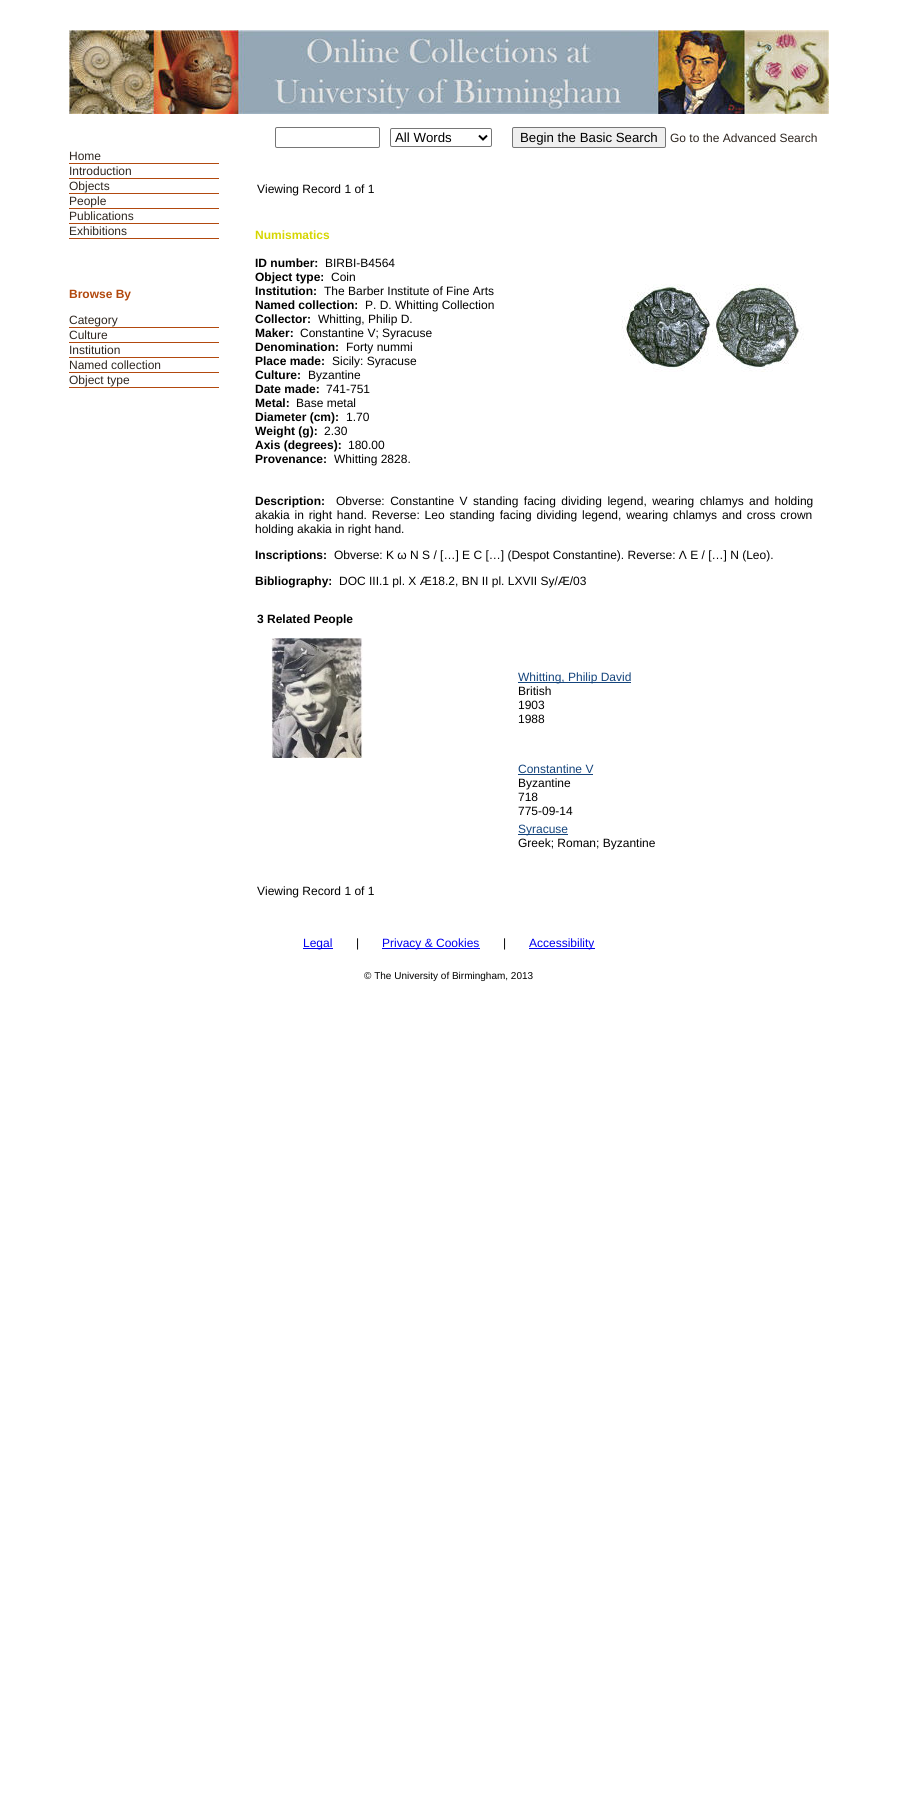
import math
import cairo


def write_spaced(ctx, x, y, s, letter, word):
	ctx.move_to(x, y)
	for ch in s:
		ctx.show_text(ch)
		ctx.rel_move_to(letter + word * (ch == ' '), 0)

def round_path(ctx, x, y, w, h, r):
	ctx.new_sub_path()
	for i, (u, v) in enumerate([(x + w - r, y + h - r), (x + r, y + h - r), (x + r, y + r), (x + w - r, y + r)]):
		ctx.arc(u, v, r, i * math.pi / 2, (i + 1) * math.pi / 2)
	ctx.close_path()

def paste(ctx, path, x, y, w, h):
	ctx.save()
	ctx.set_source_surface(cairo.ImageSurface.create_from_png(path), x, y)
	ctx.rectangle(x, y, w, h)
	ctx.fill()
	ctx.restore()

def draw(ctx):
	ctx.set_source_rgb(1, 1, 1)
	ctx.paint()
	paste(ctx, 'media/1.png', 69, 30, 760, 84)
	round_path(ctx, 275.5, 127.5, 104, 20, 1.5)
	ctx.set_source_rgb(0.463, 0.463, 0.463)
	ctx.set_line_width(1)
	ctx.stroke()
	round_path(ctx, 390.5, 128.5, 101, 18, 1.5)
	ctx.stroke()
	ctx.new_path()
	ctx.move_to(479, 135.5)
	ctx.line_to(483, 139.5)
	ctx.line_to(487, 135.5)
	ctx.set_source_rgb(0, 0, 0)
	ctx.set_line_width(2)
	ctx.stroke()
	ctx.select_font_face('Liberation Sans')
	ctx.set_font_size(13.25)
	ctx.move_to(395, 142)
	ctx.show_text('All Words')
	ctx.set_source_rgb(0.937, 0.937, 0.937)
	round_path(ctx, 512.5, 127.5, 153, 20, 1.5)
	ctx.fill_preserve()
	ctx.set_source_rgb(0.463, 0.463, 0.463)
	ctx.set_line_width(1)
	ctx.stroke()
	ctx.set_source_rgb(0, 0, 0)
	ctx.move_to(520, 142)
	ctx.show_text('Begin the Basic Search')
	ctx.set_font_size(12)
	ctx.set_source_rgb(0.18, 0.149, 0.125)
	ctx.move_to(670, 142)
	ctx.show_text('Go to the Advanced Search')
	ctx.set_source_rgb(0.698, 0.286, 0.055)
	ctx.rectangle(69, 163, 150, 1)
	ctx.fill()
	ctx.set_source_rgb(0.18, 0.149, 0.125)
	ctx.move_to(69, 160)
	ctx.show_text('Home')
	ctx.set_source_rgb(0.698, 0.286, 0.055)
	ctx.rectangle(69, 178, 150, 1)
	ctx.fill()
	ctx.set_source_rgb(0.18, 0.149, 0.125)
	ctx.move_to(69, 175)
	ctx.show_text('Introduction')
	ctx.set_source_rgb(0.698, 0.286, 0.055)
	ctx.rectangle(69, 193, 150, 1)
	ctx.fill()
	ctx.set_source_rgb(0.18, 0.149, 0.125)
	ctx.move_to(69, 190)
	ctx.show_text('Objects')
	ctx.set_source_rgb(0.698, 0.286, 0.055)
	ctx.rectangle(69, 208, 150, 1)
	ctx.fill()
	ctx.set_source_rgb(0.18, 0.149, 0.125)
	ctx.move_to(69, 205)
	ctx.show_text('People')
	ctx.set_source_rgb(0.698, 0.286, 0.055)
	ctx.rectangle(69, 223, 150, 1)
	ctx.fill()
	ctx.set_source_rgb(0.18, 0.149, 0.125)
	ctx.move_to(69, 220)
	ctx.show_text('Publications')
	ctx.set_source_rgb(0.698, 0.286, 0.055)
	ctx.rectangle(69, 238, 150, 1)
	ctx.fill()
	ctx.set_source_rgb(0.18, 0.149, 0.125)
	ctx.move_to(69, 235)
	ctx.show_text('Exhibitions')
	ctx.set_source_rgb(0, 0, 0)
	ctx.move_to(257, 193)
	ctx.show_text('Viewing Record 1 of 1')
	ctx.select_font_face('Liberation Sans', cairo.FONT_SLANT_NORMAL, cairo.FONT_WEIGHT_BOLD)
	ctx.set_source_rgb(0.839, 0.839, 0)
	ctx.move_to(255, 239)
	ctx.show_text('Numismatics')
	ctx.set_source_rgb(0, 0, 0)
	ctx.move_to(255, 267)
	ctx.show_text('ID number:')
	ctx.select_font_face('Liberation Sans')
	ctx.move_to(325, 267)
	ctx.show_text('BIRBI-B4564')
	ctx.select_font_face('Liberation Sans', cairo.FONT_SLANT_NORMAL, cairo.FONT_WEIGHT_BOLD)
	ctx.move_to(255, 281)
	ctx.show_text('Object type:')
	ctx.select_font_face('Liberation Sans')
	ctx.move_to(331, 281)
	ctx.show_text('Coin')
	ctx.select_font_face('Liberation Sans', cairo.FONT_SLANT_NORMAL, cairo.FONT_WEIGHT_BOLD)
	ctx.move_to(255, 295)
	ctx.show_text('Institution:')
	ctx.select_font_face('Liberation Sans')
	ctx.move_to(324, 295)
	ctx.show_text('The Barber Institute of Fine Arts')
	ctx.select_font_face('Liberation Sans', cairo.FONT_SLANT_NORMAL, cairo.FONT_WEIGHT_BOLD)
	ctx.move_to(255, 309)
	ctx.show_text('Named collection:')
	ctx.select_font_face('Liberation Sans')
	ctx.move_to(365, 309)
	ctx.show_text('P. D. Whitting Collection')
	ctx.select_font_face('Liberation Sans', cairo.FONT_SLANT_NORMAL, cairo.FONT_WEIGHT_BOLD)
	ctx.move_to(255, 323)
	ctx.show_text('Collector:')
	ctx.select_font_face('Liberation Sans')
	ctx.move_to(318, 323)
	ctx.show_text('Whitting, Philip D.')
	ctx.select_font_face('Liberation Sans', cairo.FONT_SLANT_NORMAL, cairo.FONT_WEIGHT_BOLD)
	ctx.move_to(255, 337)
	ctx.show_text('Maker:')
	ctx.select_font_face('Liberation Sans')
	ctx.move_to(300, 337)
	ctx.show_text('Constantine V; Syracuse')
	ctx.select_font_face('Liberation Sans', cairo.FONT_SLANT_NORMAL, cairo.FONT_WEIGHT_BOLD)
	ctx.move_to(255, 351)
	ctx.show_text('Denomination:')
	ctx.select_font_face('Liberation Sans')
	ctx.move_to(346, 351)
	ctx.show_text('Forty nummi')
	ctx.select_font_face('Liberation Sans', cairo.FONT_SLANT_NORMAL, cairo.FONT_WEIGHT_BOLD)
	ctx.move_to(255, 365)
	ctx.show_text('Place made:')
	ctx.select_font_face('Liberation Sans')
	ctx.move_to(332, 365)
	ctx.show_text('Sicily: Syracuse')
	ctx.select_font_face('Liberation Sans', cairo.FONT_SLANT_NORMAL, cairo.FONT_WEIGHT_BOLD)
	ctx.move_to(255, 379)
	ctx.show_text('Culture:')
	ctx.select_font_face('Liberation Sans')
	ctx.move_to(308, 379)
	ctx.show_text('Byzantine')
	ctx.select_font_face('Liberation Sans', cairo.FONT_SLANT_NORMAL, cairo.FONT_WEIGHT_BOLD)
	ctx.move_to(255, 393)
	ctx.show_text('Date made:')
	ctx.select_font_face('Liberation Sans')
	ctx.move_to(326, 393)
	ctx.show_text('741-751')
	ctx.select_font_face('Liberation Sans', cairo.FONT_SLANT_NORMAL, cairo.FONT_WEIGHT_BOLD)
	ctx.move_to(255, 407)
	ctx.show_text('Metal:')
	ctx.select_font_face('Liberation Sans')
	ctx.move_to(296, 407)
	ctx.show_text('Base metal')
	ctx.select_font_face('Liberation Sans', cairo.FONT_SLANT_NORMAL, cairo.FONT_WEIGHT_BOLD)
	ctx.move_to(255, 421)
	ctx.show_text('Diameter (cm):')
	ctx.select_font_face('Liberation Sans')
	ctx.move_to(346, 421)
	ctx.show_text('1.70')
	ctx.select_font_face('Liberation Sans', cairo.FONT_SLANT_NORMAL, cairo.FONT_WEIGHT_BOLD)
	ctx.move_to(255, 435)
	ctx.show_text('Weight (g):')
	ctx.select_font_face('Liberation Sans')
	ctx.move_to(324, 435)
	ctx.show_text('2.30')
	ctx.select_font_face('Liberation Sans', cairo.FONT_SLANT_NORMAL, cairo.FONT_WEIGHT_BOLD)
	ctx.move_to(255, 449)
	ctx.show_text('Axis (degrees):')
	ctx.select_font_face('Liberation Sans')
	ctx.move_to(348, 449)
	ctx.show_text('180.00')
	ctx.select_font_face('Liberation Sans', cairo.FONT_SLANT_NORMAL, cairo.FONT_WEIGHT_BOLD)
	ctx.move_to(255, 463)
	ctx.show_text('Provenance:')
	ctx.select_font_face('Liberation Sans')
	ctx.move_to(334, 463)
	ctx.show_text('Whitting 2828.')
	paste(ctx, 'media/2.png', 621, 284, 183, 88)
	ctx.select_font_face('Liberation Sans', cairo.FONT_SLANT_NORMAL, cairo.FONT_WEIGHT_BOLD)
	ctx.move_to(255, 505)
	ctx.show_text('Description:')
	ctx.select_font_face('Liberation Sans')
	write_spaced(ctx, 336, 505, 'Obverse: Constantine V standing facing dividing legend, wearing chlamys and holding', 0, 2.1)
	write_spaced(ctx, 255, 519, 'akakia in right hand. Reverse: Leo standing facing dividing legend, wearing chlamys and cross crown', 0, 1.5)
	ctx.move_to(255, 533)
	ctx.show_text('holding akakia in right hand.')
	ctx.select_font_face('Liberation Sans', cairo.FONT_SLANT_NORMAL, cairo.FONT_WEIGHT_BOLD)
	ctx.move_to(255, 559)
	ctx.show_text('Inscriptions:')
	ctx.select_font_face('Liberation Sans')
	ctx.move_to(334, 559)
	ctx.show_text('Obverse: K ω N S / […] E C […] (Despot Constantine). Reverse: Λ E / […] N (Leo).')
	ctx.select_font_face('Liberation Sans', cairo.FONT_SLANT_NORMAL, cairo.FONT_WEIGHT_BOLD)
	ctx.move_to(255, 585)
	ctx.show_text('Bibliography:')
	ctx.select_font_face('Liberation Sans')
	ctx.move_to(339, 585)
	ctx.show_text('DOC III.1 pl. X Æ18.2, BN II pl. LXVII Sy/Æ/03')
	ctx.select_font_face('Liberation Sans', cairo.FONT_SLANT_NORMAL, cairo.FONT_WEIGHT_BOLD)
	ctx.move_to(257, 623)
	ctx.show_text('3 Related People')
	paste(ctx, 'media/3.png', 271, 638, 92, 120)
	ctx.set_source_rgb(0.082, 0.267, 0.486)
	ctx.rectangle(518, 682, 113, 1)
	ctx.fill()
	ctx.select_font_face('Liberation Sans')
	ctx.move_to(518, 681)
	ctx.show_text('Whitting, Philip David')
	ctx.set_source_rgb(0, 0, 0)
	for x, y, s in [
		(518, 695, 'British'),
		(518, 709, '1903'),
		(518, 723, '1988'),
	]:
		ctx.move_to(x, y)
		ctx.show_text(s)
	ctx.set_source_rgb(0.082, 0.267, 0.486)
	ctx.move_to(518, 773)
	ctx.show_text('Constantine V')
	ctx.rectangle(518, 774, 75, 1)
	ctx.fill()
	ctx.set_source_rgb(0, 0, 0)
	for x, y, s in [
		(518, 787, 'Byzantine'),
		(518, 801, '718'),
		(518, 815, '775-09-14'),
	]:
		ctx.move_to(x, y)
		ctx.show_text(s)
	ctx.set_source_rgb(0.082, 0.267, 0.486)
	ctx.rectangle(518, 834, 50, 1)
	ctx.fill()
	ctx.move_to(518, 833)
	ctx.show_text('Syracuse')
	ctx.set_source_rgb(0, 0, 0)
	ctx.move_to(518, 847)
	ctx.show_text('Greek; Roman; Byzantine')
	ctx.move_to(257, 895)
	ctx.show_text('Viewing Record 1 of 1')
	ctx.select_font_face('Liberation Sans', cairo.FONT_SLANT_NORMAL, cairo.FONT_WEIGHT_BOLD)
	ctx.set_source_rgb(0.698, 0.286, 0.055)
	ctx.move_to(69, 298)
	ctx.show_text('Browse By')
	ctx.rectangle(69, 327, 150, 1)
	ctx.fill()
	ctx.select_font_face('Liberation Sans')
	ctx.set_source_rgb(0.18, 0.149, 0.125)
	ctx.move_to(69, 324)
	ctx.show_text('Category')
	ctx.set_source_rgb(0.698, 0.286, 0.055)
	ctx.rectangle(69, 342, 150, 1)
	ctx.fill()
	ctx.set_source_rgb(0.18, 0.149, 0.125)
	ctx.move_to(69, 339)
	ctx.show_text('Culture')
	ctx.set_source_rgb(0.698, 0.286, 0.055)
	ctx.rectangle(69, 357, 150, 1)
	ctx.fill()
	ctx.set_source_rgb(0.18, 0.149, 0.125)
	ctx.move_to(69, 354)
	ctx.show_text('Institution')
	ctx.set_source_rgb(0.698, 0.286, 0.055)
	ctx.rectangle(69, 372, 150, 1)
	ctx.fill()
	ctx.set_source_rgb(0.18, 0.149, 0.125)
	ctx.move_to(69, 369)
	ctx.show_text('Named collection')
	ctx.set_source_rgb(0.698, 0.286, 0.055)
	ctx.rectangle(69, 387, 150, 1)
	ctx.fill()
	ctx.set_source_rgb(0.18, 0.149, 0.125)
	ctx.move_to(69, 384)
	ctx.show_text('Object type')
	ctx.set_source_rgb(0, 0, 0.933)
	ctx.rectangle(303, 948, 30, 1)
	ctx.fill()
	ctx.move_to(303, 947)
	ctx.show_text('Legal')
	ctx.set_source_rgb(0, 0, 0)
	ctx.move_to(356, 947)
	ctx.show_text('|')
	ctx.set_source_rgb(0, 0, 0.933)
	ctx.rectangle(382, 948, 98, 1)
	ctx.fill()
	ctx.move_to(382, 947)
	ctx.show_text('Privacy & Cookies')
	ctx.set_source_rgb(0, 0, 0)
	ctx.move_to(503, 947)
	ctx.show_text('|')
	ctx.set_source_rgb(0, 0, 0.933)
	ctx.rectangle(529, 948, 66, 1)
	ctx.fill()
	ctx.move_to(529, 947)
	ctx.show_text('Accessibility')
	ctx.set_font_size(10)
	ctx.set_source_rgb(0, 0, 0)
	ctx.move_to(364, 979)
	ctx.show_text('© The University of Birmingham, 2013')


surface = cairo.ImageSurface(cairo.FORMAT_RGB24, 898, 1796)
ctx = cairo.Context(surface)
options = cairo.FontOptions()
options.set_hint_metrics(cairo.HINT_METRICS_OFF)
options.set_hint_style(cairo.HINT_STYLE_NONE)
ctx.set_font_options(options)
ctx.set_miter_limit(4)
draw(ctx)
surface.write_to_png('image.png')
